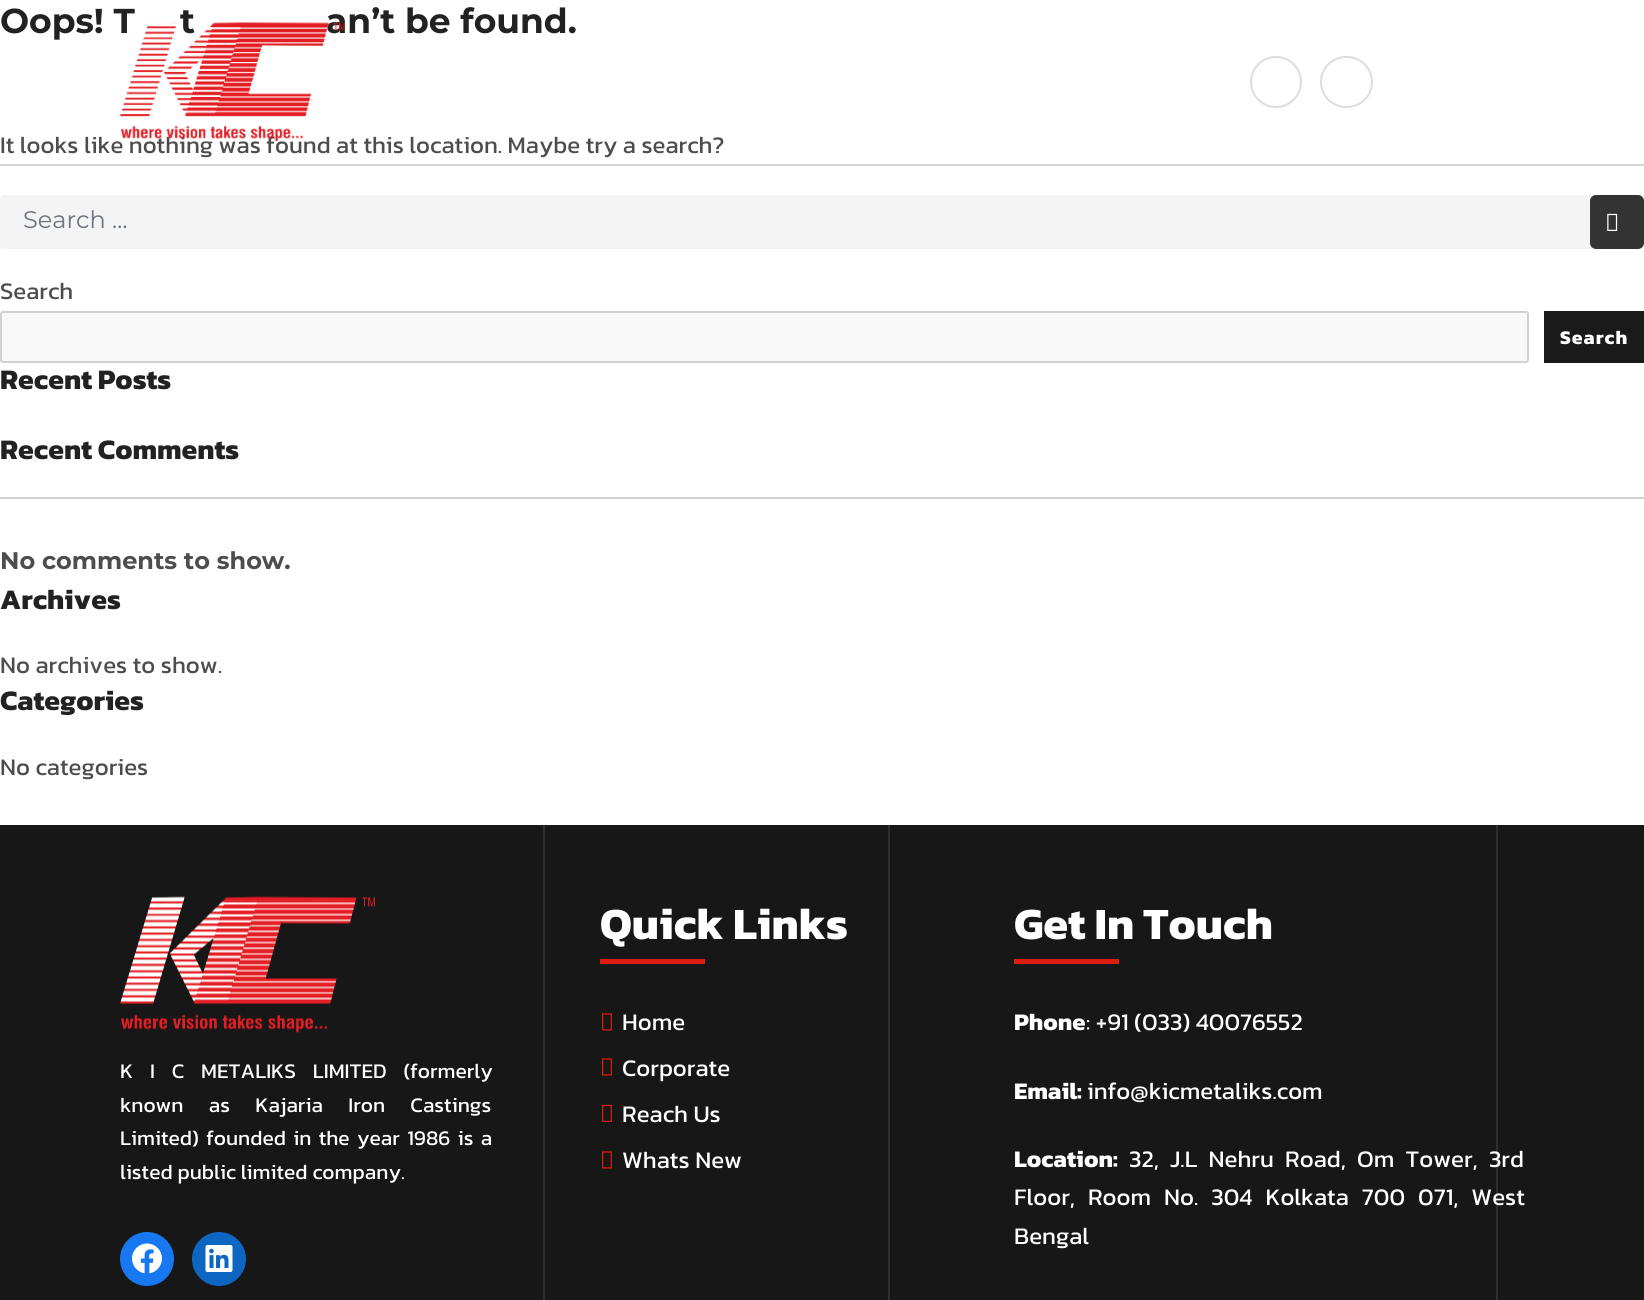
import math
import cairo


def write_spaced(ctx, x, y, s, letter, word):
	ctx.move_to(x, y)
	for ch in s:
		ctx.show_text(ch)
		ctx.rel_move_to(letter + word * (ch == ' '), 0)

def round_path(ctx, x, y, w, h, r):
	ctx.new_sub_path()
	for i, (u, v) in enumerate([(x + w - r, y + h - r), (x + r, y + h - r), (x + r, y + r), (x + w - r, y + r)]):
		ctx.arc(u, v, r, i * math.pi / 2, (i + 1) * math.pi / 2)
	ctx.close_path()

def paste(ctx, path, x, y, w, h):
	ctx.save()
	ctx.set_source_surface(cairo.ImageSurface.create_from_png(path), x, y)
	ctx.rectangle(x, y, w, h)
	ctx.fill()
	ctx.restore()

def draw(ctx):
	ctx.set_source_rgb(1, 1, 1)
	ctx.paint()
	ctx.select_font_face('Montserrat', cairo.FONT_SLANT_NORMAL, cairo.FONT_WEIGHT_BOLD)
	ctx.set_font_size(34.5)
	ctx.set_source_rgb(0.133, 0.133, 0.133)
	for x, y, s in [
		(0, 33, 'Oops! T'),
		(180, 33, 't'),
		(326, 33, 'an’t be found.'),
	]:
		ctx.move_to(x, y)
		ctx.show_text(s)
	ctx.select_font_face('Kanit')
	ctx.set_font_size(24)
	ctx.set_source_rgb(0.302, 0.302, 0.302)
	ctx.move_to(0, 153)
	ctx.show_text('It looks like nothing was found at this location. Maybe try a search?')
	ctx.set_source_rgb(0.957, 0.957, 0.957)
	ctx.new_path()
	ctx.move_to(3, 195)
	ctx.line_to(1592, 195)
	ctx.line_to(1592, 249)
	ctx.line_to(3, 249)
	ctx.curve_to(1.5, 249, 0, 247.5, 0, 246)
	ctx.line_to(0, 198)
	ctx.curve_to(0, 196.5, 1.5, 195, 3, 195)
	ctx.close_path()
	ctx.fill()
	ctx.select_font_face('Montserrat')
	ctx.set_source_rgb(0.424, 0.459, 0.49)
	ctx.move_to(23, 228)
	ctx.show_text('Search …')
	ctx.set_source_rgb(0.2, 0.2, 0.2)
	round_path(ctx, 1591, 196, 52, 52, 5)
	ctx.fill_preserve()
	ctx.stroke()
	paste(ctx, 'media/1.png', 1607, 213, 11, 18)
	ctx.set_source_rgb(0.839, 0.839, 0.839)
	ctx.rectangle(0, 164, 1644, 2)
	ctx.fill()
	paste(ctx, 'media/2.png', 120, 22, 225, 119)
	ctx.arc(1276, 82, 25, 0, 2 * math.pi)
	ctx.set_source_rgb(0.867, 0.867, 0.867)
	ctx.stroke()
	round_path(ctx, 1321, 57, 51, 50, 25)
	ctx.stroke()
	ctx.select_font_face('Kanit')
	ctx.set_source_rgb(0.302, 0.302, 0.302)
	ctx.move_to(0, 299)
	ctx.show_text('Search')
	ctx.set_source_rgb(0.969, 0.969, 0.969)
	round_path(ctx, 1, 312, 1527, 50, 2)
	ctx.fill_preserve()
	ctx.set_source_rgb(0.82, 0.82, 0.82)
	ctx.stroke()
	ctx.set_source_rgb(0.102, 0.102, 0.102)
	ctx.rectangle(1544, 311, 100, 52)
	ctx.fill()
	ctx.select_font_face('Kanit', cairo.FONT_SLANT_NORMAL, cairo.FONT_WEIGHT_BOLD)
	ctx.set_font_size(19.5)
	ctx.set_source_rgb(1, 1, 1)
	write_spaced(ctx, 1560, 344, 'Search', 1, 0)
	ctx.set_font_size(28.5)
	ctx.set_source_rgb(0.133, 0.133, 0.133)
	ctx.move_to(0, 389)
	ctx.show_text('Recent Posts')
	ctx.move_to(0, 459)
	ctx.show_text('Recent Comments')
	ctx.set_source_rgb(0.82, 0.82, 0.82)
	ctx.rectangle(0, 497, 1644, 2)
	ctx.fill()
	ctx.select_font_face('Montserrat', cairo.FONT_SLANT_NORMAL, cairo.FONT_WEIGHT_BOLD)
	ctx.set_font_size(24)
	ctx.set_source_rgb(0.302, 0.302, 0.302)
	ctx.move_to(0, 569)
	ctx.show_text('No comments to show.')
	ctx.select_font_face('Kanit', cairo.FONT_SLANT_NORMAL, cairo.FONT_WEIGHT_BOLD)
	ctx.set_font_size(28.5)
	ctx.set_source_rgb(0.133, 0.133, 0.133)
	ctx.move_to(0, 609)
	ctx.show_text('Archives')
	ctx.select_font_face('Kanit')
	ctx.set_font_size(24)
	ctx.set_source_rgb(0.302, 0.302, 0.302)
	ctx.move_to(0, 673)
	ctx.show_text('No archives to show.')
	ctx.select_font_face('Kanit', cairo.FONT_SLANT_NORMAL, cairo.FONT_WEIGHT_BOLD)
	ctx.set_font_size(28.5)
	ctx.set_source_rgb(0.133, 0.133, 0.133)
	ctx.move_to(0, 710)
	ctx.show_text('Categories')
	ctx.select_font_face('Kanit')
	ctx.set_font_size(24)
	ctx.set_source_rgb(0.302, 0.302, 0.302)
	ctx.move_to(0, 775)
	ctx.show_text('No categories')
	ctx.set_source_rgb(0.09, 0.09, 0.09)
	ctx.rectangle(0, 825, 1644, 475)
	ctx.fill()
	ctx.set_source_rgb(0.18, 0.18, 0.18)
	ctx.rectangle(543, 825, 2, 475)
	ctx.rectangle(888, 825, 2, 475)
	ctx.rectangle(1496, 825, 2, 475)
	ctx.fill()
	paste(ctx, 'media/3.png', 120, 896, 255, 137)
	ctx.set_font_size(21)
	ctx.set_source_rgb(1, 1, 1)
	write_spaced(ctx, 120, 1078, 'K I C METALIKS LIMITED (formerly', 0, 12)
	write_spaced(ctx, 120, 1112, 'known as Kajaria Iron Castings', 0, 20.5)
	write_spaced(ctx, 120, 1145, 'Limited) founded in the year 1986 is a', 0, 2.5)
	ctx.move_to(120, 1179)
	ctx.show_text('listed public limited company.')
	ctx.set_source_rgb(0.09, 0.471, 0.949)
	ctx.new_path()
	ctx.arc(147, 1259, 27, 0, 2 * math.pi)
	ctx.fill()
	paste(ctx, 'media/4.png', 132, 1243, 30, 31)
	ctx.set_source_rgb(0.051, 0.4, 0.761)
	ctx.arc(219, 1259, 27, 0, 2 * math.pi)
	ctx.fill()
	paste(ctx, 'media/5.png', 205, 1245, 28, 27)
	ctx.select_font_face('Kanit', cairo.FONT_SLANT_NORMAL, cairo.FONT_WEIGHT_BOLD)
	ctx.set_font_size(45)
	ctx.set_source_rgb(1, 1, 1)
	ctx.move_to(600, 939)
	ctx.show_text('Quick Links')
	ctx.set_source_rgb(0.867, 0.114, 0.059)
	ctx.rectangle(600, 959, 105, 5)
	ctx.fill()
	paste(ctx, 'media/6.png', 602, 1013, 10, 18)
	ctx.select_font_face('Kanit')
	ctx.set_font_size(24)
	ctx.set_source_rgb(1, 1, 1)
	ctx.move_to(622, 1030)
	ctx.show_text('Home')
	paste(ctx, 'media/6.png', 602, 1058, 10, 18)
	ctx.move_to(622, 1076)
	ctx.show_text('Corporate')
	paste(ctx, 'media/7.png', 602, 1104, 10, 18)
	ctx.move_to(622, 1122)
	ctx.show_text('Reach Us')
	paste(ctx, 'media/6.png', 602, 1151, 10, 18)
	ctx.move_to(622, 1168)
	ctx.show_text('Whats New')
	ctx.select_font_face('Kanit', cairo.FONT_SLANT_NORMAL, cairo.FONT_WEIGHT_BOLD)
	ctx.set_font_size(45)
	ctx.move_to(1014, 939)
	ctx.show_text('Get In Touch')
	ctx.set_source_rgb(0.867, 0.114, 0.059)
	ctx.rectangle(1014, 959, 105, 5)
	ctx.fill()
	ctx.set_font_size(24)
	ctx.set_source_rgb(1, 1, 1)
	ctx.move_to(1014, 1030)
	ctx.show_text('Phone')
	ctx.select_font_face('Kanit')
	ctx.move_to(1086, 1030)
	ctx.show_text(': +91 (033) 40076552')
	ctx.select_font_face('Kanit', cairo.FONT_SLANT_NORMAL, cairo.FONT_WEIGHT_BOLD)
	ctx.move_to(1014, 1099)
	ctx.show_text('Email:')
	ctx.select_font_face('Kanit')
	ctx.move_to(1087, 1099)
	ctx.show_text('info@kicmetaliks.com')
	ctx.select_font_face('Kanit', cairo.FONT_SLANT_NORMAL, cairo.FONT_WEIGHT_BOLD)
	ctx.move_to(1014, 1167)
	ctx.show_text('Location:')
	ctx.select_font_face('Kanit')
	write_spaced(ctx, 1129, 1167, '32, J.L Nehru Road, Om Tower, 3rd', 0, 5.75)
	write_spaced(ctx, 1014, 1205, 'Floor, Room No. 304 Kolkata 700 071, West', 0, 7.5)
	ctx.move_to(1014, 1244)
	ctx.show_text('Bengal')


surface = cairo.ImageSurface(cairo.FORMAT_RGB24, 1644, 1300)
ctx = cairo.Context(surface)
options = cairo.FontOptions()
options.set_hint_metrics(cairo.HINT_METRICS_OFF)
options.set_hint_style(cairo.HINT_STYLE_NONE)
ctx.set_font_options(options)
ctx.set_miter_limit(4)
draw(ctx)
surface.write_to_png('image.png')
